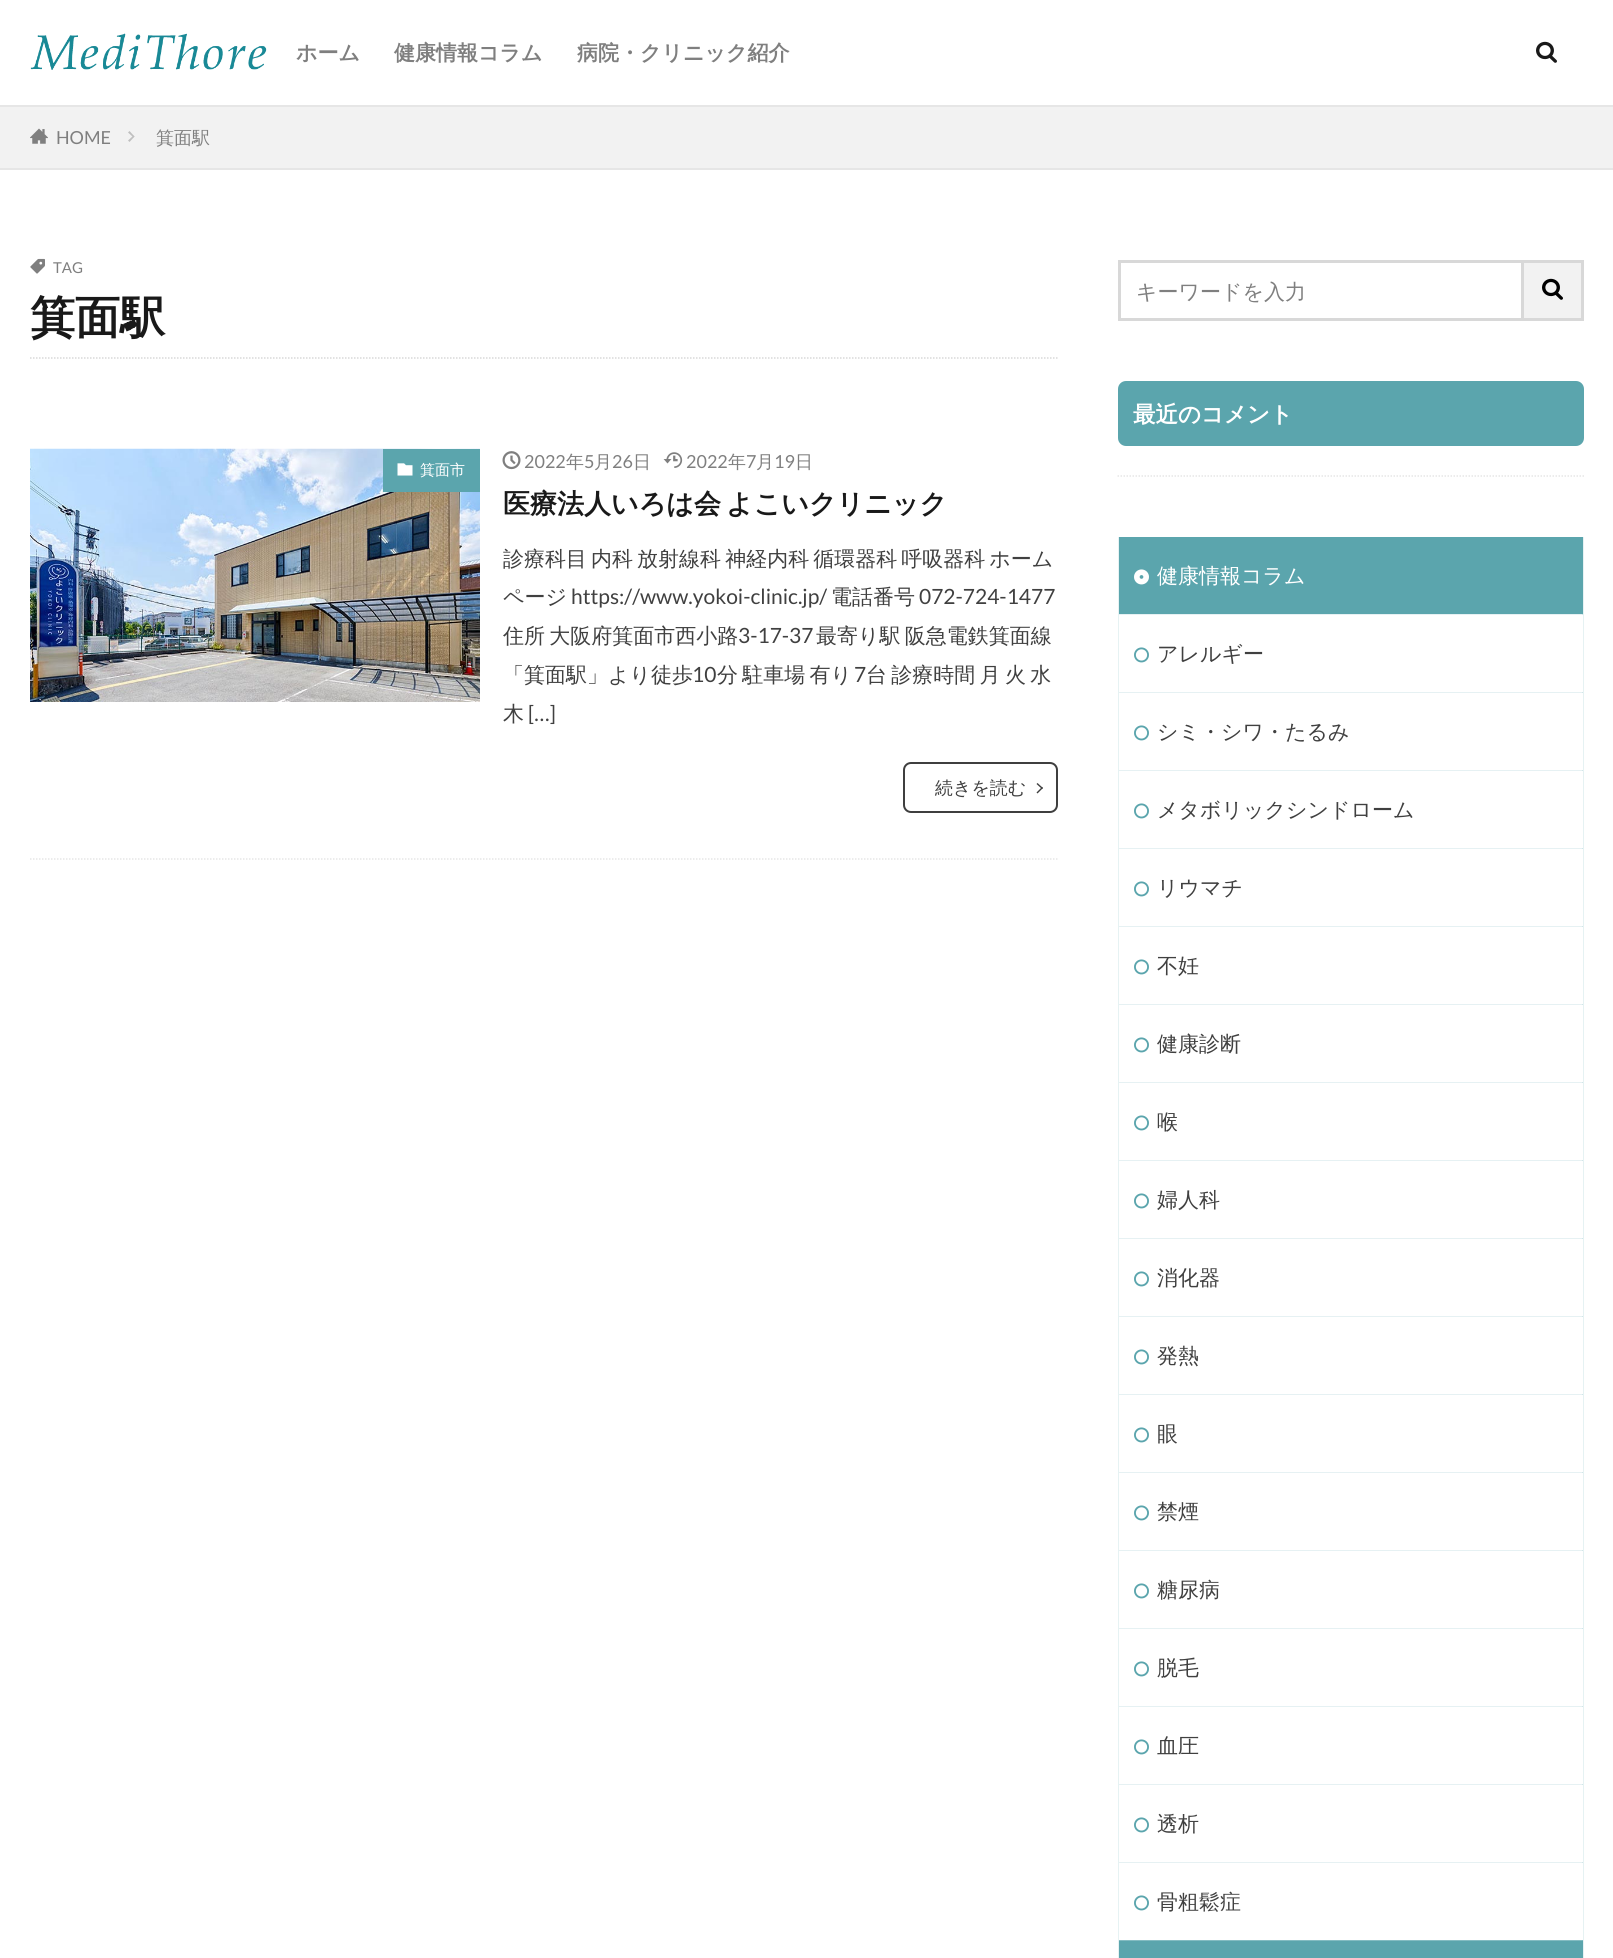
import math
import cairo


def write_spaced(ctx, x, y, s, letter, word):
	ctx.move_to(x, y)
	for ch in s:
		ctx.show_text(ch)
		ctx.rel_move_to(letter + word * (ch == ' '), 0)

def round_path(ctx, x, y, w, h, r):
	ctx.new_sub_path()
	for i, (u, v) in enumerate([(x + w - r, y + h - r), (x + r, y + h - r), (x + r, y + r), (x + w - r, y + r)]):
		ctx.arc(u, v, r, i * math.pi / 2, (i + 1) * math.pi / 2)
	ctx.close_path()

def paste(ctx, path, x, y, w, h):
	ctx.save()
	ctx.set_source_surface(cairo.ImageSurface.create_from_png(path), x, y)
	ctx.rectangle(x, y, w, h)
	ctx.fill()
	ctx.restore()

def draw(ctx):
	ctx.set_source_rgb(1, 1, 1)
	ctx.paint()
	ctx.set_source_rgb(0.902, 0.902, 0.902)
	ctx.rectangle(0, 105, 1613, 2)
	ctx.fill()
	paste(ctx, 'media/1.png', 30, 33, 237, 37)
	ctx.select_font_face('WenQuanYi Zen Hei', cairo.FONT_SLANT_NORMAL, cairo.FONT_WEIGHT_BOLD)
	ctx.set_font_size(21)
	ctx.set_source_rgb(0.498, 0.498, 0.498)
	for x, y, s in [
		(296, 60, 'ホーム'),
		(394, 60, '健康情報コラム'),
		(577, 60, '病院・クリニック紹介'),
	]:
		ctx.move_to(x, y)
		ctx.show_text(s)
	paste(ctx, 'media/2.png', 1536, 41, 21, 22)
	ctx.set_source_rgb(0.949, 0.949, 0.949)
	ctx.rectangle(0, 107, 1613, 61)
	ctx.fill()
	ctx.set_source_rgb(0.902, 0.902, 0.902)
	ctx.rectangle(0, 168, 1613, 2)
	ctx.fill()
	paste(ctx, 'media/3.png', 30, 128, 18, 16)
	ctx.select_font_face('Lato')
	ctx.set_font_size(18)
	ctx.set_source_rgb(0.498, 0.498, 0.498)
	ctx.move_to(56, 144)
	ctx.show_text('HOME')
	ctx.set_source_rgb(0.749, 0.749, 0.749)
	ctx.new_path()
	ctx.move_to(129.5, 131)
	ctx.line_to(134.5, 136.5)
	ctx.line_to(133.5, 137.5)
	ctx.line_to(128, 132.5)
	ctx.close_path()
	ctx.fill()
	ctx.new_path()
	ctx.move_to(133.5, 135.5)
	ctx.line_to(134.5, 136.5)
	ctx.line_to(129.5, 142)
	ctx.line_to(128, 140.5)
	ctx.close_path()
	ctx.fill()
	ctx.select_font_face('WenQuanYi Zen Hei Medium')
	ctx.set_source_rgb(0.498, 0.498, 0.498)
	ctx.move_to(156, 144)
	ctx.show_text('箕面駅')
	paste(ctx, 'media/4.png', 30, 258, 15, 16)
	ctx.select_font_face('Lato')
	ctx.set_font_size(15)
	ctx.move_to(53, 273)
	ctx.show_text('TAG')
	ctx.new_path()
	ctx.move_to(30, 358)
	ctx.line_to(1057.5, 358)
	ctx.set_source_rgb(0.847, 0.847, 0.847)
	ctx.set_line_width(1.5)
	ctx.set_dash([1.5, 1.5])
	ctx.stroke()
	ctx.select_font_face('WenQuanYi Zen Hei', cairo.FONT_SLANT_NORMAL, cairo.FONT_WEIGHT_BOLD)
	ctx.set_font_size(45)
	ctx.set_source_rgb(0.098, 0.098, 0.098)
	ctx.move_to(30, 333)
	ctx.show_text('箕面駅')
	ctx.new_path()
	ctx.move_to(30, 859)
	ctx.line_to(1057.5, 859)
	ctx.set_source_rgb(0.902, 0.902, 0.902)
	ctx.stroke()
	paste(ctx, 'media/5.png', 30, 448, 450, 254)
	ctx.set_source_rgb(0.357, 0.647, 0.678)
	ctx.rectangle(383, 449, 97, 43)
	ctx.fill()
	paste(ctx, 'media/6.png', 397, 463, 16, 13)
	ctx.select_font_face('WenQuanYi Zen Hei Medium')
	ctx.set_font_size(15)
	ctx.set_source_rgb(1, 1, 1)
	ctx.move_to(420, 475)
	ctx.show_text('箕面市')
	paste(ctx, 'media/7.png', 502, 451, 19, 19)
	ctx.select_font_face('Lato')
	ctx.set_font_size(18)
	ctx.set_source_rgb(0.498, 0.498, 0.498)
	ctx.move_to(524, 468)
	ctx.show_text('2022')
	ctx.select_font_face('WenQuanYi Zen Hei Medium')
	ctx.move_to(566, 468)
	ctx.show_text('年')
	ctx.select_font_face('Lato')
	ctx.move_to(584, 468)
	ctx.show_text('5')
	ctx.select_font_face('WenQuanYi Zen Hei Medium')
	ctx.move_to(594, 468)
	ctx.show_text('月')
	ctx.select_font_face('Lato')
	ctx.move_to(612, 468)
	ctx.show_text('26')
	ctx.select_font_face('WenQuanYi Zen Hei Medium')
	ctx.move_to(633, 468)
	ctx.show_text('日')
	paste(ctx, 'media/8.png', 663, 452, 20, 16)
	ctx.select_font_face('Lato')
	ctx.move_to(686, 468)
	ctx.show_text('2022')
	ctx.select_font_face('WenQuanYi Zen Hei Medium')
	ctx.move_to(728, 468)
	ctx.show_text('年')
	ctx.select_font_face('Lato')
	ctx.move_to(746, 468)
	ctx.show_text('7')
	ctx.select_font_face('WenQuanYi Zen Hei Medium')
	ctx.move_to(756, 468)
	ctx.show_text('月')
	ctx.select_font_face('Lato')
	ctx.move_to(774, 468)
	ctx.show_text('19')
	ctx.select_font_face('WenQuanYi Zen Hei Medium')
	ctx.move_to(795, 468)
	ctx.show_text('日')
	ctx.select_font_face('WenQuanYi Zen Hei', cairo.FONT_SLANT_NORMAL, cairo.FONT_WEIGHT_BOLD)
	ctx.set_font_size(27)
	ctx.set_source_rgb(0.098, 0.098, 0.098)
	write_spaced(ctx, 503, 513, '医療法人いろは会 よこいクリニック', 0, -3)
	ctx.select_font_face('WenQuanYi Zen Hei Medium')
	ctx.set_font_size(21)
	ctx.set_source_rgb(0.251, 0.251, 0.251)
	write_spaced(ctx, 503, 566, '診療科目 内科 放射線科 神経内科 循環器科 呼吸器科 ホーム', 0, -2.25)
	ctx.move_to(503, 604)
	ctx.show_text('ページ')
	ctx.select_font_face('Lato')
	ctx.move_to(571, 604)
	ctx.show_text('https://www.yokoi-clinic.jp/')
	ctx.select_font_face('WenQuanYi Zen Hei Medium')
	ctx.move_to(831, 604)
	ctx.show_text('電話番号')
	ctx.select_font_face('Lato')
	ctx.move_to(919, 604)
	ctx.show_text('072-724-1477')
	ctx.select_font_face('WenQuanYi Zen Hei Medium')
	write_spaced(ctx, 503, 643, '住所 大阪府箕面市西小路', 0, -2)
	ctx.select_font_face('Lato')
	ctx.move_to(738, 643)
	ctx.show_text('3-17-37')
	ctx.select_font_face('WenQuanYi Zen Hei Medium')
	write_spaced(ctx, 816, 643, '最寄り駅 阪急電鉄箕面線', 0, -2)
	ctx.move_to(503, 682)
	ctx.show_text('「箕面駅」より徒歩')
	ctx.select_font_face('Lato')
	ctx.move_to(692, 682)
	ctx.show_text('10')
	ctx.select_font_face('WenQuanYi Zen Hei Medium')
	write_spaced(ctx, 717, 682, '分 駐車場 有り', 0, -2)
	ctx.select_font_face('Lato')
	ctx.move_to(854, 682)
	ctx.show_text('7')
	ctx.select_font_face('WenQuanYi Zen Hei Medium')
	write_spaced(ctx, 866, 682, '台 診療時間 月 火 水', 0, -2)
	ctx.move_to(503, 721)
	ctx.show_text('木')
	ctx.select_font_face('Lato')
	ctx.move_to(528, 721)
	ctx.show_text('[…]')
	round_path(ctx, 904, 763, 153, 49, 7)
	ctx.set_source_rgb(0.247, 0.247, 0.247)
	ctx.set_line_width(2)
	ctx.set_dash([])
	ctx.stroke()
	ctx.select_font_face('WenQuanYi Zen Hei Medium')
	ctx.set_font_size(18)
	ctx.set_source_rgb(0.251, 0.251, 0.251)
	ctx.move_to(935, 794)
	ctx.show_text('続きを読む')
	ctx.set_source_rgb(0.247, 0.247, 0.247)
	ctx.new_path()
	ctx.move_to(1037.5, 783)
	ctx.line_to(1043, 788)
	ctx.line_to(1042, 789)
	ctx.line_to(1036.5, 784)
	ctx.close_path()
	ctx.fill()
	ctx.new_path()
	ctx.move_to(1042, 787)
	ctx.line_to(1043, 788)
	ctx.line_to(1037.5, 793.5)
	ctx.line_to(1036.5, 792.5)
	ctx.close_path()
	ctx.fill()
	ctx.rectangle(1119.5, 261.5, 403, 58)
	ctx.set_source_rgb(0.847, 0.847, 0.847)
	ctx.set_line_width(3)
	ctx.stroke()
	ctx.set_font_size(21)
	ctx.set_source_rgb(0.498, 0.498, 0.498)
	ctx.move_to(1136, 299)
	ctx.show_text('キーワードを入力')
	ctx.set_source_rgb(0.949, 0.949, 0.949)
	ctx.rectangle(1524, 263, 57, 55)
	ctx.fill()
	ctx.set_source_rgb(0.847, 0.847, 0.847)
	ctx.rectangle(1524, 260, 60, 3)
	ctx.rectangle(1581, 260, 3, 61)
	ctx.rectangle(1524, 318, 60, 3)
	ctx.fill()
	paste(ctx, 'media/9.png', 1542, 278, 21, 22)
	ctx.set_source_rgb(0.357, 0.647, 0.678)
	round_path(ctx, 1118, 381, 466, 65, 8)
	ctx.fill()
	ctx.select_font_face('WenQuanYi Zen Hei', cairo.FONT_SLANT_NORMAL, cairo.FONT_WEIGHT_BOLD)
	ctx.set_font_size(22.5)
	ctx.set_source_rgb(1, 1, 1)
	ctx.move_to(1133, 422)
	ctx.show_text('最近のコメント')
	ctx.new_path()
	ctx.move_to(1117.5, 476)
	ctx.line_to(1584, 476)
	ctx.set_source_rgb(0.902, 0.902, 0.902)
	ctx.set_line_width(1.5)
	ctx.set_dash([1.5, 1.5])
	ctx.stroke()
	ctx.set_source_rgb(0.902, 0.949, 0.953)
	ctx.new_path()
	ctx.move_to(1584, 537)
	ctx.line_to(1584, 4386)
	ctx.line_to(1582, 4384)
	ctx.line_to(1582, 537)
	ctx.close_path()
	ctx.fill()
	ctx.new_path()
	ctx.move_to(1118, 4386)
	ctx.line_to(1118, 537)
	ctx.line_to(1119, 537)
	ctx.line_to(1119, 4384)
	ctx.close_path()
	ctx.fill()
	ctx.set_source_rgb(0.357, 0.647, 0.678)
	ctx.rectangle(1119, 537, 464, 77)
	ctx.fill()
	paste(ctx, 'media/10.png', 1134, 569, 15, 16)
	ctx.select_font_face('WenQuanYi Zen Hei Medium')
	ctx.set_font_size(21)
	ctx.set_source_rgb(1, 1, 1)
	ctx.move_to(1157, 583)
	ctx.show_text('健康情報コラム')
	ctx.set_source_rgba(0.357, 0.647, 0.678, 0.15)
	ctx.rectangle(1119, 614, 464, 1)
	ctx.fill()
	ctx.set_source_rgb(1, 1, 1)
	ctx.rectangle(1582, 615, 1, 77)
	ctx.fill()
	paste(ctx, 'media/11.png', 1134, 647, 15, 16)
	ctx.set_source_rgb(0.251, 0.251, 0.251)
	ctx.move_to(1157, 661)
	ctx.show_text('アレルギー')
	ctx.set_source_rgba(0.357, 0.647, 0.678, 0.15)
	ctx.rectangle(1119, 692, 464, 1)
	ctx.fill()
	ctx.set_source_rgb(1, 1, 1)
	ctx.rectangle(1582, 693, 1, 77)
	ctx.fill()
	paste(ctx, 'media/11.png', 1134, 725, 15, 16)
	ctx.set_source_rgb(0.251, 0.251, 0.251)
	ctx.move_to(1157, 739)
	ctx.show_text('シミ・シワ・たるみ')
	ctx.set_source_rgba(0.357, 0.647, 0.678, 0.15)
	ctx.rectangle(1119, 770, 464, 1)
	ctx.fill()
	ctx.set_source_rgb(1, 1, 1)
	ctx.rectangle(1582, 771, 1, 77)
	ctx.fill()
	paste(ctx, 'media/11.png', 1134, 803, 15, 16)
	ctx.set_source_rgb(0.251, 0.251, 0.251)
	ctx.move_to(1157, 817)
	ctx.show_text('メタボリックシンドローム')
	ctx.set_source_rgba(0.357, 0.647, 0.678, 0.15)
	ctx.rectangle(1119, 848, 464, 1)
	ctx.fill()
	ctx.set_source_rgb(1, 1, 1)
	ctx.rectangle(1582, 849, 1, 77)
	ctx.fill()
	paste(ctx, 'media/11.png', 1134, 881, 15, 16)
	ctx.set_source_rgb(0.251, 0.251, 0.251)
	ctx.move_to(1157, 895)
	ctx.show_text('リウマチ')
	ctx.set_source_rgba(0.357, 0.647, 0.678, 0.15)
	ctx.rectangle(1119, 926, 464, 1)
	ctx.fill()
	ctx.set_source_rgb(1, 1, 1)
	ctx.rectangle(1582, 927, 1, 77)
	ctx.fill()
	paste(ctx, 'media/11.png', 1134, 959, 15, 16)
	ctx.set_source_rgb(0.251, 0.251, 0.251)
	ctx.move_to(1157, 973)
	ctx.show_text('不妊')
	ctx.set_source_rgba(0.357, 0.647, 0.678, 0.15)
	ctx.rectangle(1119, 1004, 464, 1)
	ctx.fill()
	ctx.set_source_rgb(1, 1, 1)
	ctx.rectangle(1582, 1005, 1, 77)
	ctx.fill()
	paste(ctx, 'media/11.png', 1134, 1037, 15, 16)
	ctx.set_source_rgb(0.251, 0.251, 0.251)
	ctx.move_to(1157, 1051)
	ctx.show_text('健康診断')
	ctx.set_source_rgba(0.357, 0.647, 0.678, 0.15)
	ctx.rectangle(1119, 1082, 464, 1)
	ctx.fill()
	ctx.set_source_rgb(1, 1, 1)
	ctx.rectangle(1582, 1083, 1, 77)
	ctx.fill()
	paste(ctx, 'media/11.png', 1134, 1115, 15, 16)
	ctx.set_source_rgb(0.251, 0.251, 0.251)
	ctx.move_to(1157, 1129)
	ctx.show_text('喉')
	ctx.set_source_rgba(0.357, 0.647, 0.678, 0.15)
	ctx.rectangle(1119, 1160, 464, 1)
	ctx.fill()
	ctx.set_source_rgb(1, 1, 1)
	ctx.rectangle(1582, 1161, 1, 77)
	ctx.fill()
	paste(ctx, 'media/11.png', 1134, 1193, 15, 16)
	ctx.set_source_rgb(0.251, 0.251, 0.251)
	ctx.move_to(1157, 1207)
	ctx.show_text('婦人科')
	ctx.set_source_rgba(0.357, 0.647, 0.678, 0.15)
	ctx.rectangle(1119, 1238, 464, 1)
	ctx.fill()
	ctx.set_source_rgb(1, 1, 1)
	ctx.rectangle(1582, 1239, 1, 77)
	ctx.fill()
	paste(ctx, 'media/11.png', 1134, 1271, 15, 16)
	ctx.set_source_rgb(0.251, 0.251, 0.251)
	ctx.move_to(1157, 1285)
	ctx.show_text('消化器')
	ctx.set_source_rgba(0.357, 0.647, 0.678, 0.15)
	ctx.rectangle(1119, 1316, 464, 1)
	ctx.fill()
	ctx.set_source_rgb(1, 1, 1)
	ctx.rectangle(1582, 1317, 1, 77)
	ctx.fill()
	paste(ctx, 'media/11.png', 1134, 1349, 15, 16)
	ctx.set_source_rgb(0.251, 0.251, 0.251)
	ctx.move_to(1157, 1363)
	ctx.show_text('発熱')
	ctx.set_source_rgba(0.357, 0.647, 0.678, 0.15)
	ctx.rectangle(1119, 1394, 464, 1)
	ctx.fill()
	ctx.set_source_rgb(1, 1, 1)
	ctx.rectangle(1582, 1395, 1, 77)
	ctx.fill()
	paste(ctx, 'media/11.png', 1134, 1427, 15, 16)
	ctx.set_source_rgb(0.251, 0.251, 0.251)
	ctx.move_to(1157, 1441)
	ctx.show_text('眼')
	ctx.set_source_rgba(0.357, 0.647, 0.678, 0.15)
	ctx.rectangle(1119, 1472, 464, 1)
	ctx.fill()
	ctx.set_source_rgb(1, 1, 1)
	ctx.rectangle(1582, 1473, 1, 77)
	ctx.fill()
	paste(ctx, 'media/11.png', 1134, 1505, 15, 16)
	ctx.set_source_rgb(0.251, 0.251, 0.251)
	ctx.move_to(1157, 1519)
	ctx.show_text('禁煙')
	ctx.set_source_rgba(0.357, 0.647, 0.678, 0.15)
	ctx.rectangle(1119, 1550, 464, 1)
	ctx.fill()
	ctx.set_source_rgb(1, 1, 1)
	ctx.rectangle(1582, 1551, 1, 77)
	ctx.fill()
	paste(ctx, 'media/11.png', 1134, 1583, 15, 16)
	ctx.set_source_rgb(0.251, 0.251, 0.251)
	ctx.move_to(1157, 1597)
	ctx.show_text('糖尿病')
	ctx.set_source_rgba(0.357, 0.647, 0.678, 0.15)
	ctx.rectangle(1119, 1628, 464, 1)
	ctx.fill()
	ctx.set_source_rgb(1, 1, 1)
	ctx.rectangle(1582, 1629, 1, 77)
	ctx.fill()
	paste(ctx, 'media/11.png', 1134, 1661, 15, 16)
	ctx.set_source_rgb(0.251, 0.251, 0.251)
	ctx.move_to(1157, 1675)
	ctx.show_text('脱毛')
	ctx.set_source_rgba(0.357, 0.647, 0.678, 0.15)
	ctx.rectangle(1119, 1706, 464, 1)
	ctx.fill()
	ctx.set_source_rgb(1, 1, 1)
	ctx.rectangle(1582, 1707, 1, 77)
	ctx.fill()
	paste(ctx, 'media/11.png', 1134, 1739, 15, 16)
	ctx.set_source_rgb(0.251, 0.251, 0.251)
	ctx.move_to(1157, 1753)
	ctx.show_text('血圧')
	ctx.set_source_rgba(0.357, 0.647, 0.678, 0.15)
	ctx.rectangle(1119, 1784, 464, 1)
	ctx.fill()
	ctx.set_source_rgb(1, 1, 1)
	ctx.rectangle(1582, 1785, 1, 77)
	ctx.fill()
	paste(ctx, 'media/11.png', 1134, 1817, 15, 16)
	ctx.set_source_rgb(0.251, 0.251, 0.251)
	ctx.move_to(1157, 1831)
	ctx.show_text('透析')
	ctx.set_source_rgba(0.357, 0.647, 0.678, 0.15)
	ctx.rectangle(1119, 1862, 464, 1)
	ctx.fill()
	ctx.set_source_rgb(1, 1, 1)
	ctx.rectangle(1582, 1863, 1, 77)
	ctx.fill()
	paste(ctx, 'media/11.png', 1134, 1895, 15, 16)
	ctx.set_source_rgb(0.251, 0.251, 0.251)
	ctx.move_to(1157, 1909)
	ctx.show_text('骨粗鬆症')
	ctx.set_source_rgba(0.357, 0.647, 0.678, 0.75)
	ctx.rectangle(1119, 1940, 464, 1)
	ctx.fill()
	ctx.set_source_rgb(0.357, 0.647, 0.678)
	ctx.rectangle(1119, 1941, 464, 17)
	ctx.fill()


surface = cairo.ImageSurface(cairo.FORMAT_RGB24, 1613, 1958)
ctx = cairo.Context(surface)
options = cairo.FontOptions()
options.set_hint_metrics(cairo.HINT_METRICS_OFF)
options.set_hint_style(cairo.HINT_STYLE_NONE)
ctx.set_font_options(options)
ctx.set_miter_limit(4)
draw(ctx)
surface.write_to_png('image.png')
